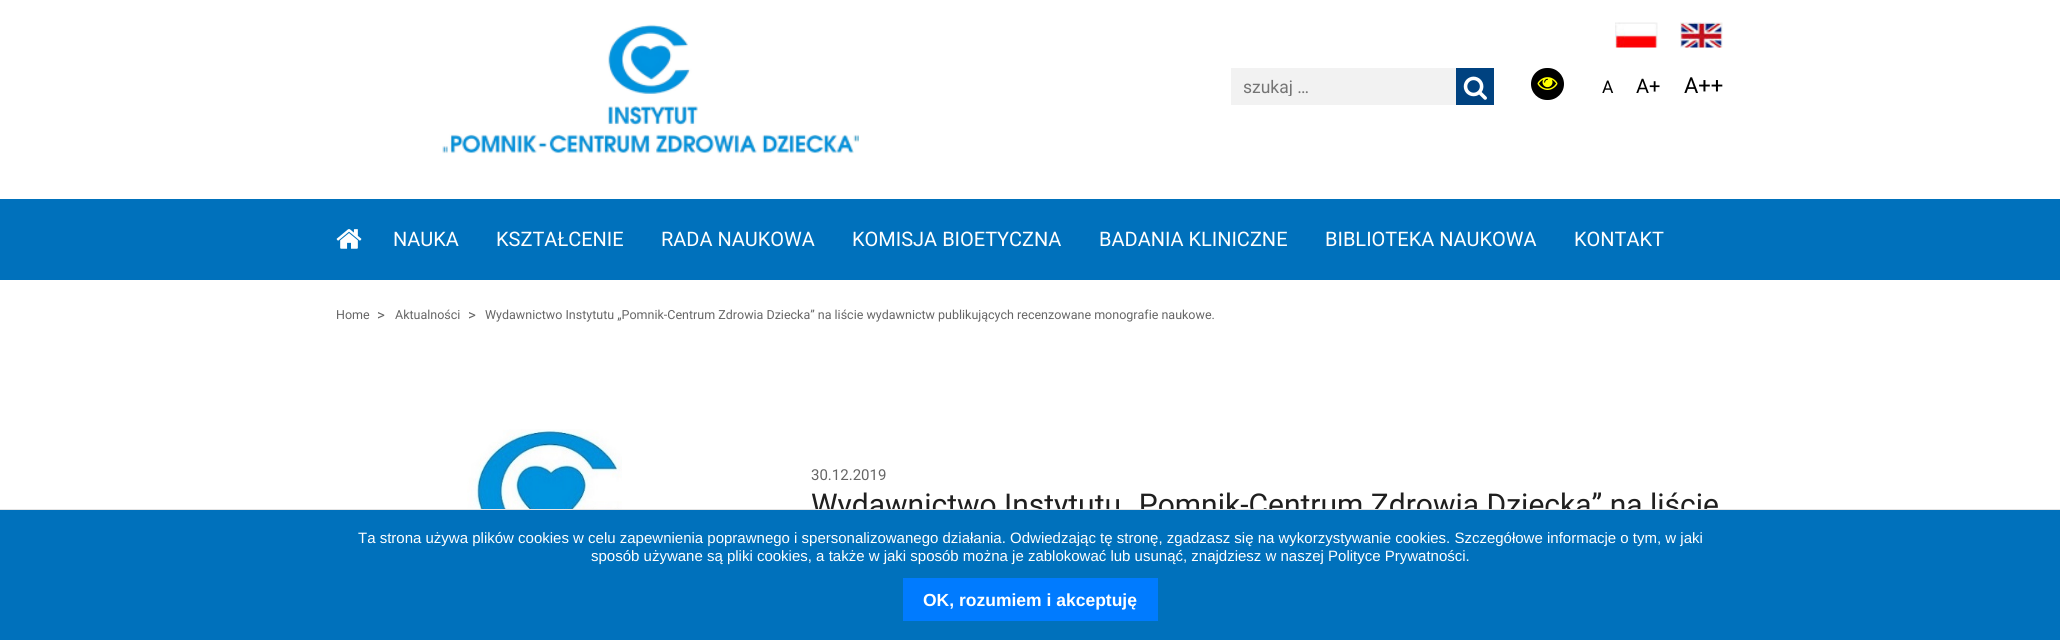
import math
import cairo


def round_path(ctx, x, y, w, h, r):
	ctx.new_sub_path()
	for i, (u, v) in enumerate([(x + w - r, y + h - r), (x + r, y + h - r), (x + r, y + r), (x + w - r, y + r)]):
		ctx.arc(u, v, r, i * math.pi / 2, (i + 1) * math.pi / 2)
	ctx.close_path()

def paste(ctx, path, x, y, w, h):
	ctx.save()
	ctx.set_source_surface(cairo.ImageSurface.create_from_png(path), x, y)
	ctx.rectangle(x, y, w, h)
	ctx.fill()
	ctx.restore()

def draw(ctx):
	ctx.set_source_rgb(1, 1, 1)
	ctx.paint()
	paste(ctx, 'media/1.png', 442, 24, 417, 130)
	paste(ctx, 'media/2.png', 1615, 22, 43, 26)
	paste(ctx, 'media/3.png', 1680, 22, 43, 26)
	ctx.set_source_rgb(0.949, 0.949, 0.949)
	ctx.rectangle(1231, 68, 225, 37)
	ctx.fill()
	ctx.save()
	ctx.rectangle(1244, 76, 195, 20)
	ctx.clip()
	ctx.select_font_face('Roboto')
	ctx.set_font_size(17.5)
	ctx.set_source_rgb(0.459, 0.459, 0.459)
	ctx.move_to(1243, 93)
	ctx.show_text('szukaj …')
	ctx.restore()
	ctx.set_source_rgb(0, 0.259, 0.502)
	ctx.rectangle(1456, 68, 38, 37)
	ctx.fill()
	paste(ctx, 'media/4.png', 1463, 76, 24, 24)
	ctx.set_source_rgb(0, 0, 0)
	round_path(ctx, 1531, 68, 33, 32, 16)
	ctx.fill()
	paste(ctx, 'media/5.png', 1537, 77, 21, 13)
	ctx.select_font_face('Roboto')
	ctx.set_font_size(17.5)
	ctx.move_to(1602, 93)
	ctx.show_text('A')
	ctx.set_font_size(20)
	ctx.move_to(1636, 93)
	ctx.show_text('A+')
	ctx.set_font_size(22)
	ctx.move_to(1684, 93)
	ctx.show_text('A++')
	ctx.set_source_rgb(0, 0.443, 0.737)
	ctx.rectangle(0, 199, 2060, 81)
	ctx.fill()
	paste(ctx, 'media/6.png', 336, 229, 26, 20)
	ctx.set_font_size(20)
	ctx.set_source_rgb(1, 1, 1)
	for x, y, s in [
		(393, 246, 'NAUKA'),
		(496, 246, 'KSZTAŁCENIE'),
		(661, 246, 'RADA NAUKOWA'),
		(852, 246, 'KOMISJA BIOETYCZNA'),
		(1099, 246, 'BADANIA KLINICZNE'),
		(1325, 246, 'BIBLIOTEKA NAUKOWA'),
		(1574, 246, 'KONTAKT'),
	]:
		ctx.move_to(x, y)
		ctx.show_text(s)
	ctx.set_font_size(12.5)
	ctx.set_source_rgb(0.4, 0.4, 0.4)
	ctx.move_to(336, 319)
	ctx.show_text('Home')
	ctx.set_font_size(15)
	ctx.move_to(377, 320)
	ctx.show_text('>')
	ctx.set_font_size(12.5)
	ctx.move_to(395, 319)
	ctx.show_text('Aktualności')
	ctx.set_font_size(15)
	ctx.move_to(468, 320)
	ctx.show_text('>')
	ctx.set_font_size(12.5)
	ctx.move_to(485, 319)
	ctx.show_text('Wydawnictwo Instytutu „Pomnik-Centrum Zdrowia Dziecka” na liście wydawnictw publikujących recenzowane monografie naukowe.')
	paste(ctx, 'media/7.png', 467, 429, 155, 80)
	ctx.set_font_size(15)
	ctx.move_to(811, 480)
	ctx.show_text('30.12.2019')
	ctx.set_font_size(30)
	ctx.set_source_rgb(0.122, 0.122, 0.122)
	ctx.move_to(811, 515)
	ctx.show_text('Wydawnictwo Instytutu „Pomnik-Centrum Zdrowia Dziecka” na liście')
	ctx.set_source_rgb(0, 0.443, 0.737)
	ctx.rectangle(0, 510, 2060, 130)
	ctx.fill()
	ctx.set_source_rgb(0.894, 0.894, 0.894)
	ctx.rectangle(0, 509, 2060, 1)
	ctx.fill()
	ctx.select_font_face('Liberation Sans')
	ctx.set_font_size(15)
	ctx.set_source_rgb(1, 1, 1)
	ctx.move_to(358, 543)
	ctx.show_text('Ta strona używa plików cookies w celu zapewnienia poprawnego i spersonalizowanego działania. Odwiedzając tę stronę, zgadzasz się na wykorzystywanie cookies. Szczegółowe informacje o tym, w jaki')
	ctx.move_to(591, 561)
	ctx.show_text('sposób używane są pliki cookies, a także w jaki sposób można je zablokować lub usunąć, znajdziesz w naszej Polityce Prywatności.')
	ctx.set_source_rgb(0, 0.482, 1)
	ctx.rectangle(903, 578, 255, 43)
	ctx.fill()
	ctx.select_font_face('Liberation Sans', cairo.FONT_SLANT_NORMAL, cairo.FONT_WEIGHT_BOLD)
	ctx.set_font_size(17.5)
	ctx.set_source_rgb(1, 1, 1)
	ctx.move_to(923, 606)
	ctx.show_text('OK, rozumiem i akceptuję')


surface = cairo.ImageSurface(cairo.FORMAT_RGB24, 2060, 640)
ctx = cairo.Context(surface)
options = cairo.FontOptions()
options.set_hint_metrics(cairo.HINT_METRICS_OFF)
options.set_hint_style(cairo.HINT_STYLE_NONE)
ctx.set_font_options(options)
ctx.set_miter_limit(4)
draw(ctx)
surface.write_to_png('image.png')
